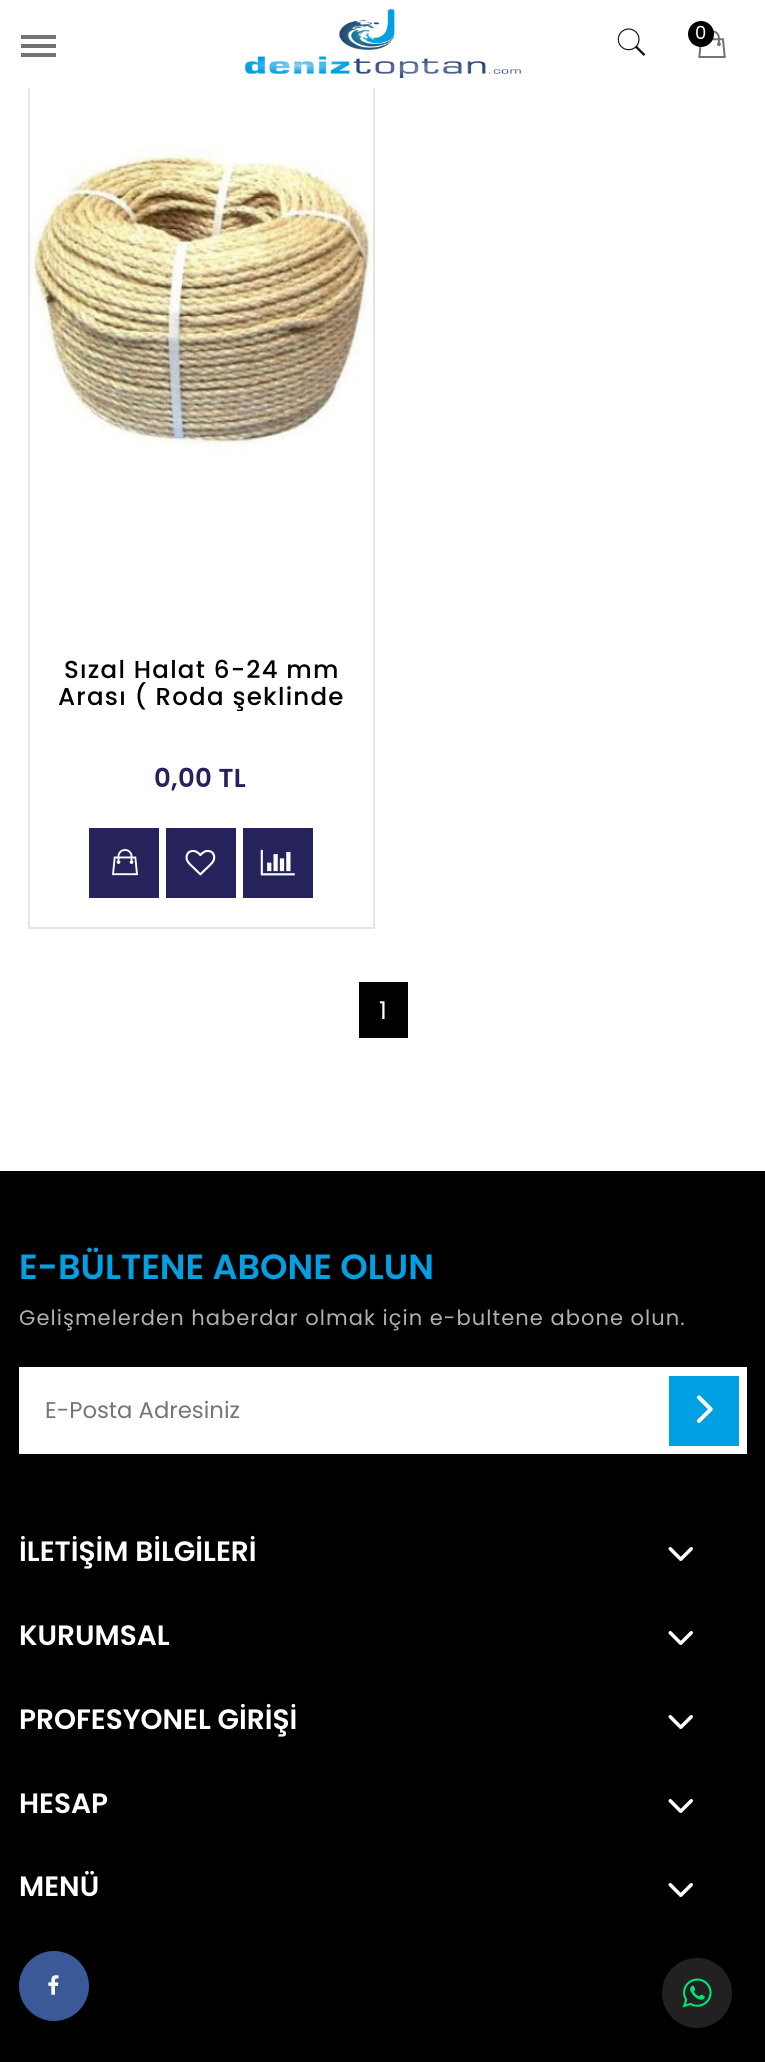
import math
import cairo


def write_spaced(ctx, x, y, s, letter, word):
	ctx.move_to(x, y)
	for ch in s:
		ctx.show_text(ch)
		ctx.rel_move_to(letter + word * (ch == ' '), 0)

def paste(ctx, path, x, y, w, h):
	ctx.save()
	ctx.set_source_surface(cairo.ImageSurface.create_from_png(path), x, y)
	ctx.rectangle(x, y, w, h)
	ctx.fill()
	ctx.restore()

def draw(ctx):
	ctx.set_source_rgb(1, 1, 1)
	ctx.paint()
	ctx.rectangle(29, -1, 345, 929)
	ctx.set_source_rgb(0.898, 0.898, 0.898)
	ctx.stroke()
	ctx.set_source_rgb(1, 1, 1)
	ctx.rectangle(28, 0, 347, 88)
	ctx.fill()
	paste(ctx, 'media/1.png', 244, 8, 278, 70)
	paste(ctx, 'media/2.png', 617, 28, 29, 28)
	paste(ctx, 'media/3.png', 698, 30, 28, 28)
	ctx.set_source_rgb(0, 0, 0)
	ctx.arc(701, 34, 13, 0, 2 * math.pi)
	ctx.fill()
	ctx.select_font_face('Poppins')
	ctx.set_font_size(18)
	ctx.set_source_rgb(1, 1, 1)
	ctx.move_to(695, 39)
	ctx.show_text('0')
	ctx.set_source_rgb(0.451, 0.451, 0.451)
	ctx.rectangle(21, 35, 35, 4)
	ctx.rectangle(21, 44, 35, 4)
	ctx.rectangle(21, 53, 35, 4)
	ctx.fill()
	paste(ctx, 'media/4.png', 30, 146, 343, 307)
	ctx.select_font_face('Poppins Medium')
	ctx.set_font_size(24.5)
	ctx.set_source_rgb(0, 0, 0)
	write_spaced(ctx, 64, 678, 'Sızal Halat 6-24 mm', 1.25, 0)
	ctx.save()
	ctx.rectangle(30, 658, 343, 53)
	ctx.clip()
	write_spaced(ctx, 58, 705, 'Arası ( Roda şeklinde', 1.25, 0)
	ctx.restore()
	ctx.select_font_face('Poppins SemiBold')
	ctx.set_font_size(26)
	ctx.set_source_rgb(0.149, 0.137, 0.361)
	write_spaced(ctx, 154, 787, '0,00 TL', 0.25, 0)
	ctx.rectangle(89, 828, 70, 70)
	ctx.fill()
	paste(ctx, 'media/5.png', 112, 849, 26, 27)
	ctx.rectangle(166, 828, 70, 70)
	ctx.fill()
	paste(ctx, 'media/6.png', 185, 849, 31, 27)
	ctx.rectangle(243, 828, 70, 70)
	ctx.fill()
	paste(ctx, 'media/7.png', 260, 849, 35, 27)
	ctx.set_source_rgb(0, 0, 0)
	ctx.rectangle(359, 982, 49, 56)
	ctx.fill()
	ctx.select_font_face('Poppins')
	ctx.set_font_size(24.5)
	ctx.set_source_rgb(1, 1, 1)
	ctx.move_to(379, 1019)
	ctx.show_text('1')
	ctx.set_source_rgb(0, 0, 0)
	ctx.rectangle(0, 1171, 765, 891)
	ctx.fill()
	ctx.select_font_face('Poppins SemiBold')
	ctx.set_font_size(35)
	ctx.set_source_rgb(0, 0.627, 0.89)
	ctx.move_to(19, 1279)
	ctx.show_text('E-BÜLTENE ABONE OLUN')
	ctx.select_font_face('Poppins')
	ctx.set_font_size(21)
	ctx.set_source_rgb(0.694, 0.694, 0.698)
	write_spaced(ctx, 19, 1325, 'Gelişmelerden haberdar olmak için e-bultene abone olun.', 1.05, 0)
	ctx.set_source_rgb(1, 1, 1)
	ctx.rectangle(19, 1367, 728, 87)
	ctx.fill()
	ctx.set_font_size(22.75)
	ctx.set_source_rgb(0.459, 0.459, 0.459)
	ctx.move_to(45, 1418)
	ctx.show_text('E-Posta Adresiniz')
	ctx.set_source_rgb(0, 0.627, 0.89)
	ctx.rectangle(669, 1376, 70, 70)
	ctx.fill()
	paste(ctx, 'media/8.png', 696, 1395, 17, 28)
	ctx.select_font_face('Poppins SemiBold')
	ctx.set_font_size(28)
	ctx.set_source_rgb(1, 1, 1)
	ctx.move_to(19, 1561)
	ctx.show_text('İLETİŞİM BİLGİLERİ')
	paste(ctx, 'media/9.png', 668, 1547, 25, 14)
	ctx.move_to(19, 1645)
	ctx.show_text('KURUMSAL')
	paste(ctx, 'media/9.png', 668, 1631, 25, 14)
	ctx.move_to(19, 1729)
	ctx.show_text('PROFESYONEL GİRİŞİ')
	paste(ctx, 'media/9.png', 668, 1715, 25, 14)
	ctx.move_to(19, 1813)
	ctx.show_text('HESAP')
	paste(ctx, 'media/9.png', 668, 1799, 25, 14)
	ctx.move_to(19, 1896)
	ctx.show_text('MENÜ')
	paste(ctx, 'media/9.png', 668, 1883, 25, 14)
	ctx.set_source_rgb(0.231, 0.349, 0.596)
	ctx.arc(54, 1986, 35, 0, 2 * math.pi)
	ctx.fill()
	paste(ctx, 'media/10.png', 48, 1975, 11, 20)
	ctx.set_source_rgb(0.133, 0.125, 0.125)
	ctx.arc(697, 1993, 35, 0, 2 * math.pi)
	ctx.fill()
	paste(ctx, 'media/11.png', 682, 1978, 30, 30)


surface = cairo.ImageSurface(cairo.FORMAT_RGB24, 765, 2062)
ctx = cairo.Context(surface)
options = cairo.FontOptions()
options.set_hint_metrics(cairo.HINT_METRICS_OFF)
options.set_hint_style(cairo.HINT_STYLE_NONE)
ctx.set_font_options(options)
ctx.set_miter_limit(4)
draw(ctx)
surface.write_to_png('image.png')
